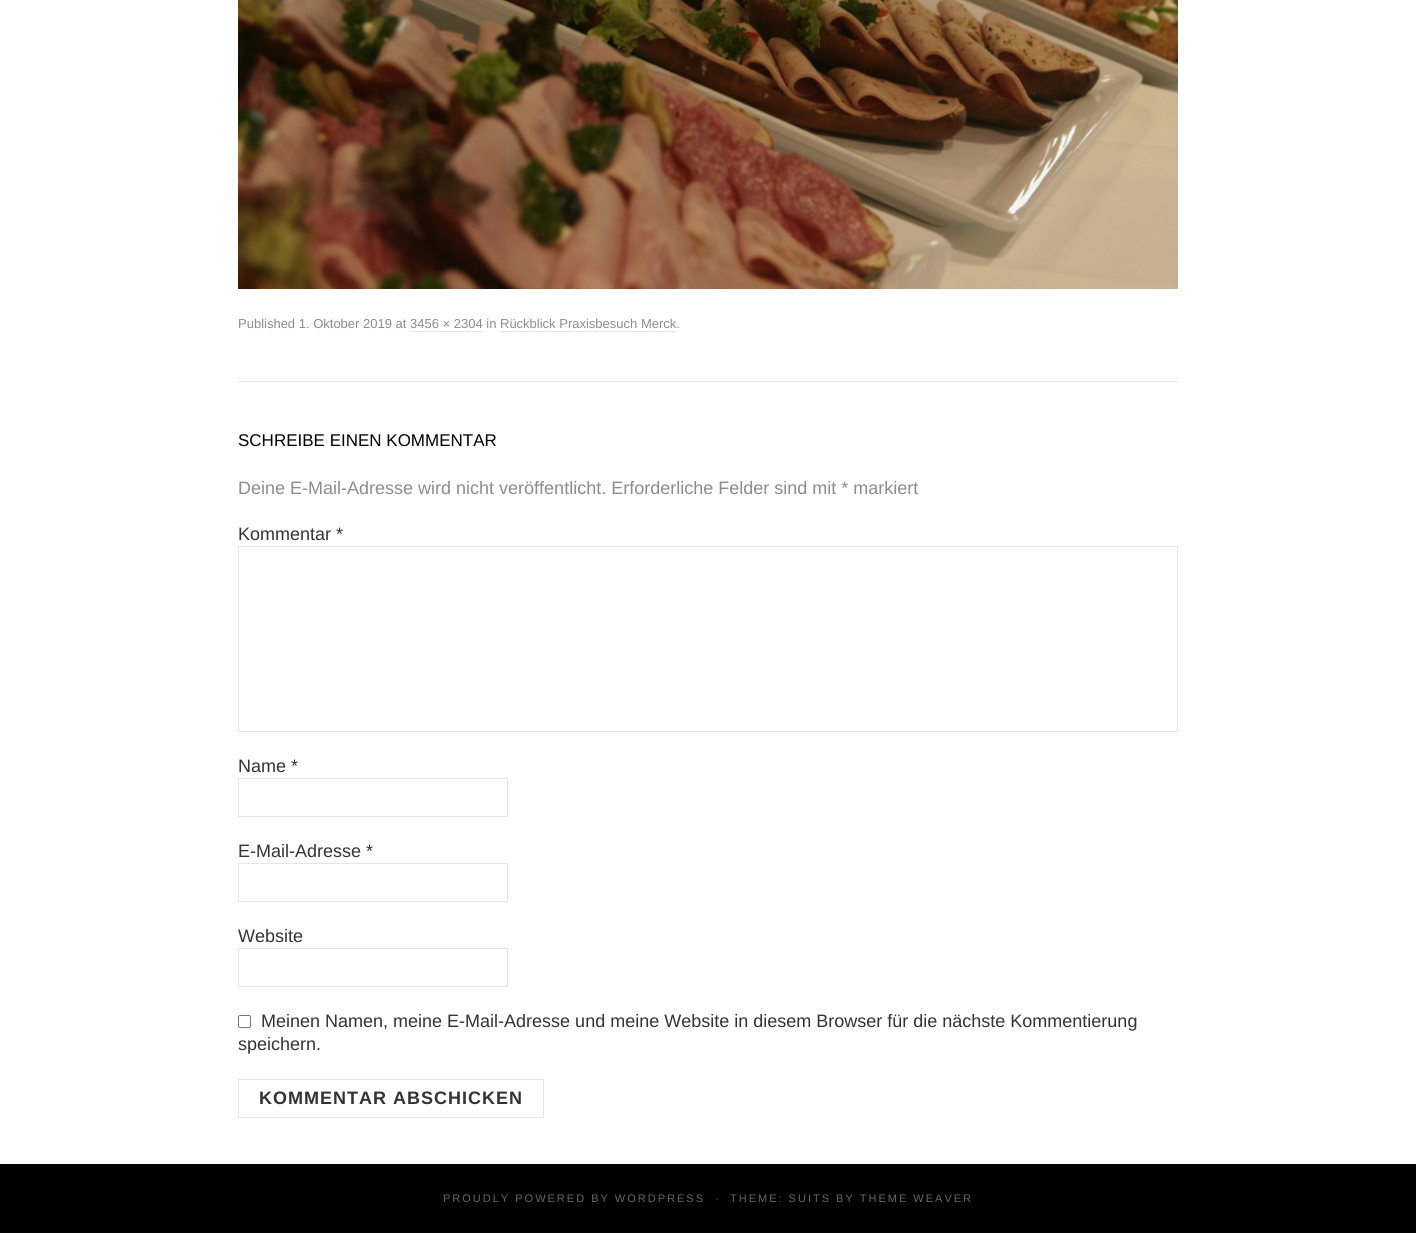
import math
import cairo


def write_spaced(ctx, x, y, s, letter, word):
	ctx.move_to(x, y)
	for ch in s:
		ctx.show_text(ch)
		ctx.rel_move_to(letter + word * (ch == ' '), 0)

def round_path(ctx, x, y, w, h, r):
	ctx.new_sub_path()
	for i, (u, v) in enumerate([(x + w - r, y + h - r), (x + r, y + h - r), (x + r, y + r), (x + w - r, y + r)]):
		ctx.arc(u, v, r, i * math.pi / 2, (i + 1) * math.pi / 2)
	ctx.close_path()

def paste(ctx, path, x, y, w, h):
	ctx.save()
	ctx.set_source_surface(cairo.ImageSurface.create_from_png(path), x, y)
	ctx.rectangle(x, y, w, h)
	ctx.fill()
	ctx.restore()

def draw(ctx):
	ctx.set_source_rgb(1, 1, 1)
	ctx.paint()
	ctx.set_source_rgb(0.902, 0.902, 0.902)
	ctx.rectangle(238, 381, 940, 1)
	ctx.fill()
	paste(ctx, 'media/1.png', 238, 0, 940, 289)
	ctx.select_font_face('Liberation Sans')
	ctx.set_font_size(13)
	ctx.set_source_rgb(0.549, 0.549, 0.549)
	ctx.move_to(238, 328)
	ctx.show_text('Published 1. Oktober 2019 at 3456 × 2304 in Rückblick Praxisbesuch Merck.')
	ctx.set_source_rgb(0.902, 0.902, 0.902)
	ctx.rectangle(410, 331, 73, 1)
	ctx.fill()
	ctx.rectangle(500, 331, 176, 1)
	ctx.fill()
	ctx.set_font_size(17)
	ctx.set_source_rgb(0, 0, 0)
	ctx.move_to(238, 446)
	ctx.show_text('SCHREIBE EINEN KOMMENTAR')
	ctx.set_font_size(18)
	ctx.set_source_rgb(0.549, 0.549, 0.549)
	ctx.move_to(238, 494)
	ctx.show_text('Deine E-Mail-Adresse wird nicht veröffentlicht. Erforderliche Felder sind mit * markiert')
	ctx.set_source_rgb(0.2, 0.2, 0.2)
	ctx.move_to(238, 540)
	ctx.show_text('Kommentar *')
	ctx.rectangle(238.5, 546.5, 939, 185)
	ctx.set_source_rgb(0.902, 0.902, 0.902)
	ctx.set_line_width(1)
	ctx.stroke()
	ctx.set_source_rgb(0.2, 0.2, 0.2)
	ctx.move_to(238, 772)
	ctx.show_text('Name *')
	ctx.rectangle(238.5, 778.5, 269, 38)
	ctx.set_source_rgb(0.902, 0.902, 0.902)
	ctx.stroke()
	ctx.set_source_rgb(0.2, 0.2, 0.2)
	ctx.move_to(238, 857)
	ctx.show_text('E-Mail-Adresse *')
	ctx.rectangle(238.5, 863.5, 269, 38)
	ctx.set_source_rgb(0.902, 0.902, 0.902)
	ctx.stroke()
	ctx.set_source_rgb(0.2, 0.2, 0.2)
	ctx.move_to(238, 942)
	ctx.show_text('Website')
	ctx.rectangle(238.5, 948.5, 269, 38)
	ctx.set_source_rgb(0.902, 0.902, 0.902)
	ctx.stroke()
	round_path(ctx, 238.5, 1015.5, 12, 12, 1.5)
	ctx.set_source_rgb(0.463, 0.463, 0.463)
	ctx.stroke()
	ctx.set_source_rgb(0.2, 0.2, 0.2)
	ctx.move_to(261, 1027)
	ctx.show_text('Meinen Namen, meine E-Mail-Adresse und meine Website in diesem Browser für die nächste Kommentierung')
	ctx.move_to(238, 1050)
	ctx.show_text('speichern.')
	ctx.rectangle(238.5, 1079.5, 305, 38)
	ctx.set_source_rgb(0.902, 0.902, 0.902)
	ctx.stroke()
	ctx.select_font_face('Liberation Sans', cairo.FONT_SLANT_NORMAL, cairo.FONT_WEIGHT_BOLD)
	ctx.set_source_rgb(0.2, 0.2, 0.2)
	write_spaced(ctx, 259, 1104, 'KOMMENTAR ABSCHICKEN', 1, 0)
	ctx.set_source_rgb(0, 0, 0)
	ctx.rectangle(0, 1164, 1416, 69)
	ctx.fill()
	ctx.select_font_face('Liberation Sans')
	ctx.set_font_size(11)
	ctx.set_source_rgb(0.4, 0.4, 0.4)
	for x, y, s in [
		(443, 1202, 'PROUDLY POWERED BY WORDPRESS'),
		(715, 1202, '·'),
		(730, 1202, 'THEME: SUITS BY THEME WEAVER'),
	]:
		write_spaced(ctx, x, y, s, 2, 0)


surface = cairo.ImageSurface(cairo.FORMAT_RGB24, 1416, 1233)
ctx = cairo.Context(surface)
options = cairo.FontOptions()
options.set_hint_metrics(cairo.HINT_METRICS_OFF)
options.set_hint_style(cairo.HINT_STYLE_NONE)
ctx.set_font_options(options)
ctx.set_miter_limit(4)
draw(ctx)
surface.write_to_png('image.png')
